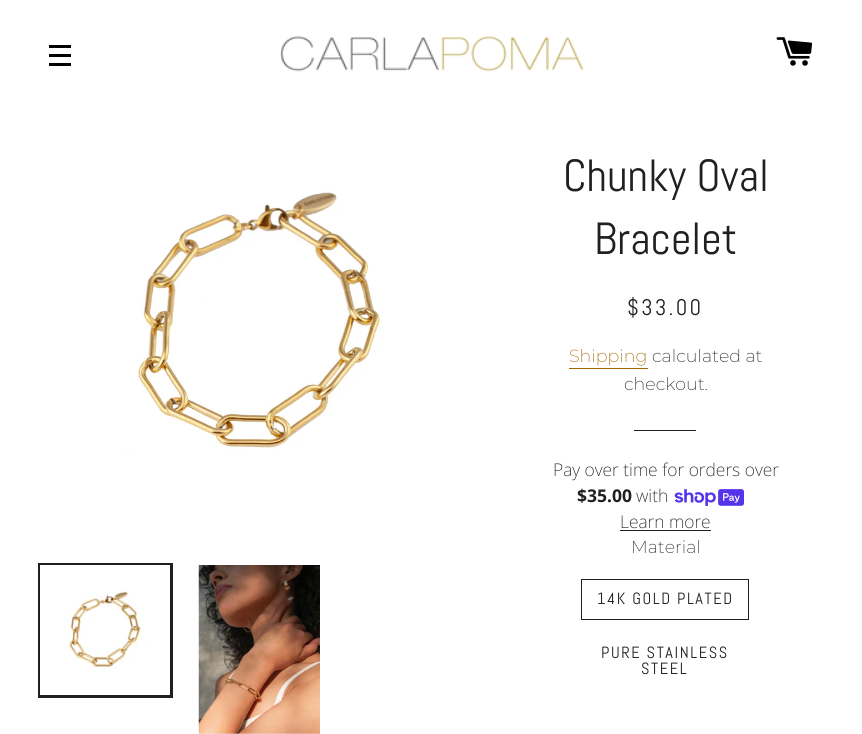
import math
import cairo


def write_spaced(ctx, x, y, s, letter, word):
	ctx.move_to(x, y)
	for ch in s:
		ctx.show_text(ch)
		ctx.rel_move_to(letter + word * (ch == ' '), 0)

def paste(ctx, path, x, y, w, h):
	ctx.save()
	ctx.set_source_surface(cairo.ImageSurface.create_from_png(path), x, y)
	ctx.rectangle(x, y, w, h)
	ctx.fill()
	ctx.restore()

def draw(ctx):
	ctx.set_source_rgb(1, 1, 1)
	ctx.paint()
	ctx.set_source_rgb(0, 0, 0)
	ctx.rectangle(49, 45, 22, 3)
	ctx.rectangle(49, 54, 22, 3)
	ctx.rectangle(49, 63, 22, 3)
	ctx.fill()
	paste(ctx, 'media/1.png', 280, 36, 304, 36)
	paste(ctx, 'media/2.png', 776, 37, 37, 29)
	paste(ctx, 'media/3.png', 38, 100, 443, 444)
	ctx.rectangle(39.5, 564.5, 132, 132)
	ctx.set_source_rgb(0.122, 0.125, 0.129)
	ctx.set_line_width(3)
	ctx.stroke()
	paste(ctx, 'media/4.png', 40, 565, 130, 130)
	paste(ctx, 'media/5.png', 198, 565, 122, 169)
	ctx.select_font_face('Abel')
	ctx.set_font_size(45)
	ctx.move_to(563, 191)
	ctx.show_text('Chunky Oval')
	ctx.move_to(594, 254)
	ctx.show_text('Bracelet')
	ctx.set_font_size(22.5)
	write_spaced(ctx, 627, 315, '$33.00', 2.25, 0)
	ctx.select_font_face('Montserrat ExtraLight')
	ctx.set_font_size(17.5)
	ctx.set_source_rgb(0.647, 0.4, 0)
	ctx.move_to(569, 362)
	ctx.show_text('Shipping')
	ctx.rectangle(569, 368, 79, 1)
	ctx.fill()
	ctx.set_source_rgb(0.122, 0.125, 0.129)
	ctx.move_to(652, 362)
	ctx.show_text('calculated at')
	ctx.move_to(624, 390)
	ctx.show_text('checkout.')
	ctx.rectangle(634, 430, 62, 1)
	ctx.fill()
	ctx.select_font_face('Noto Sans ExtraLight')
	ctx.move_to(553, 476)
	ctx.show_text('Pay over time for orders over')
	ctx.select_font_face('Noto Sans', cairo.FONT_SLANT_NORMAL, cairo.FONT_WEIGHT_BOLD)
	ctx.move_to(577, 502)
	ctx.show_text('$35.00')
	ctx.select_font_face('Noto Sans ExtraLight')
	ctx.move_to(636, 502)
	ctx.show_text('with')
	paste(ctx, 'media/6.png', 674, 489, 70, 17)
	ctx.move_to(620, 528)
	ctx.show_text('Learn more')
	ctx.rectangle(620, 530, 91, 1)
	ctx.fill()
	ctx.select_font_face('Montserrat ExtraLight')
	ctx.move_to(631, 553)
	ctx.show_text('Material')
	ctx.rectangle(581.5, 579.5, 167, 40)
	ctx.set_line_width(1)
	ctx.stroke()
	ctx.select_font_face('Abel')
	ctx.set_font_size(16.25)
	for x, y, s in [
		(597, 604, '14K GOLD PLATED'),
		(601, 658, 'PURE STAINLESS'),
		(641, 674, 'STEEL'),
	]:
		write_spaced(ctx, x, y, s, 1.6, 0)


surface = cairo.ImageSurface(cairo.FORMAT_RGB24, 862, 734)
ctx = cairo.Context(surface)
options = cairo.FontOptions()
options.set_hint_metrics(cairo.HINT_METRICS_OFF)
options.set_hint_style(cairo.HINT_STYLE_NONE)
ctx.set_font_options(options)
ctx.set_miter_limit(4)
draw(ctx)
surface.write_to_png('image.png')
